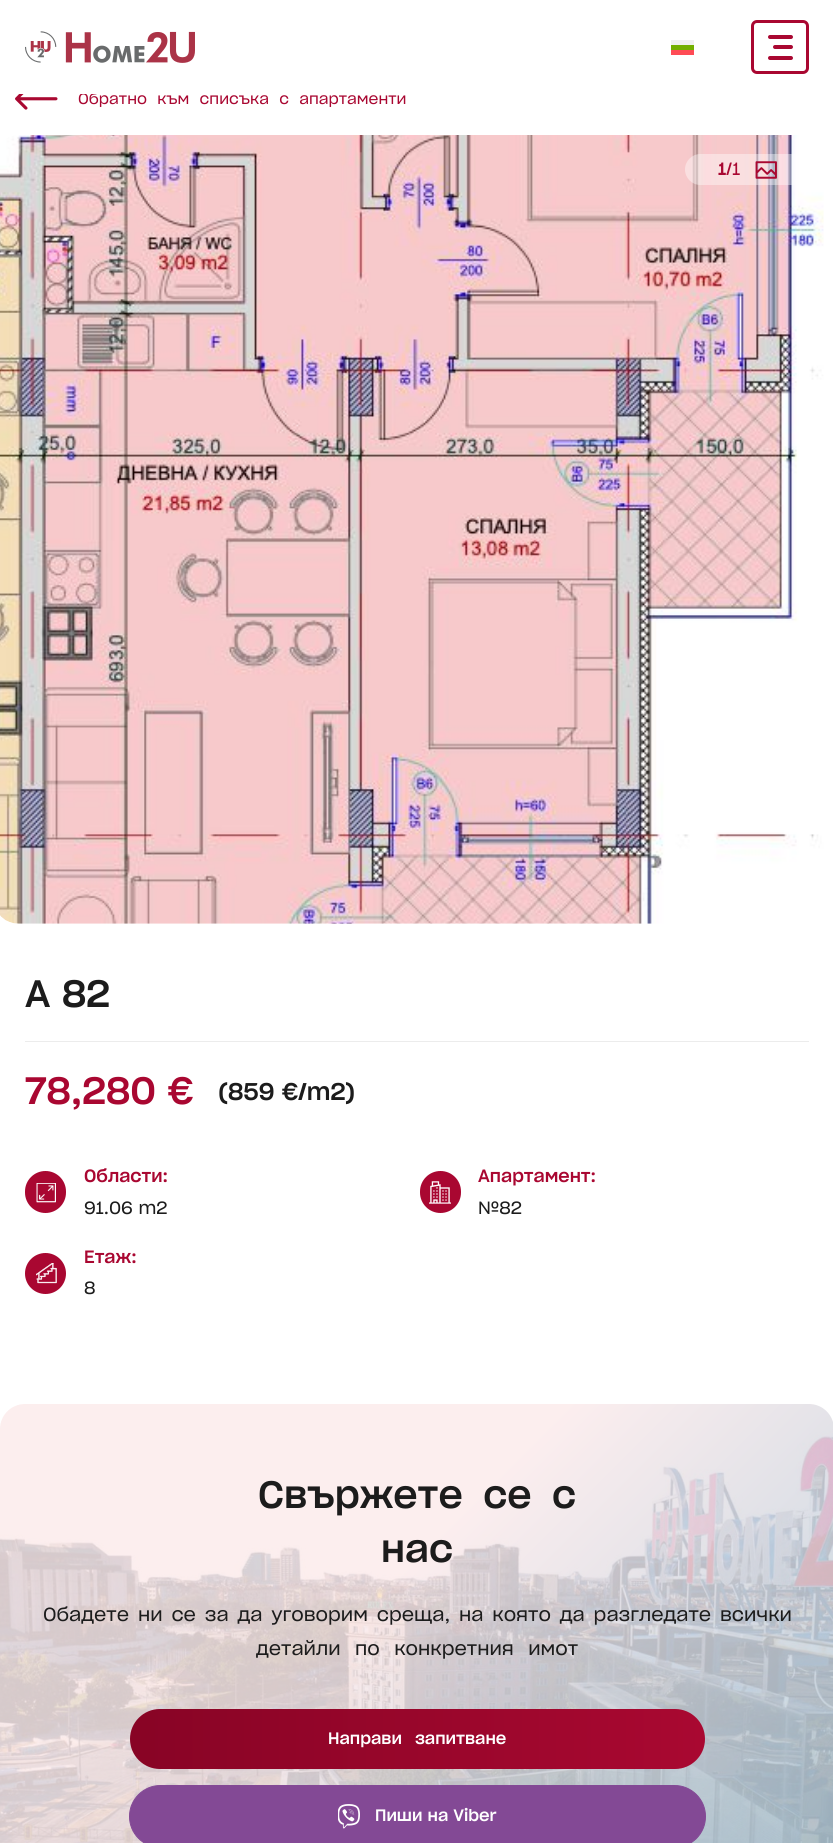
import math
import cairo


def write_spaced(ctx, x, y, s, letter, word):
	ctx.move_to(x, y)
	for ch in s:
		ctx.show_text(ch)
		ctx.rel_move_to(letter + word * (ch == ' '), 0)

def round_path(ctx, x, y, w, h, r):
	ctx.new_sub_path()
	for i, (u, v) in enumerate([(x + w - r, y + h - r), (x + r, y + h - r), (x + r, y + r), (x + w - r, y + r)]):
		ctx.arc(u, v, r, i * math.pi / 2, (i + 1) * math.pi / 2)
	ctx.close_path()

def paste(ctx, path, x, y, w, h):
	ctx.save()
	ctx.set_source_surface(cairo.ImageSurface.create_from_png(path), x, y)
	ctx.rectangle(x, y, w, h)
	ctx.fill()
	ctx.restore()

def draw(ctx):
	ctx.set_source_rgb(1, 1, 1)
	ctx.paint()
	ctx.select_font_face('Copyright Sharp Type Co')
	ctx.set_font_size(15)
	ctx.set_source_rgb(0.663, 0.031, 0.192)
	write_spaced(ctx, 78, 104, 'Обратно към списъка с апартаменти', 0, 5.5)
	ctx.set_source_rgb(1, 1, 1)
	ctx.rectangle(80, 92, 18, 2)
	ctx.fill()
	paste(ctx, 'media/1.png', 25, 31, 170, 32)
	ctx.set_source_rgb(0.451, 0.686, 0)
	ctx.rectangle(671, 45, 23, 5)
	ctx.fill()
	ctx.set_source_rgb(1, 0.294, 0.333)
	ctx.rectangle(671, 50, 23, 5)
	ctx.fill()
	ctx.set_source_rgb(0.941, 0.941, 0.941)
	ctx.rectangle(671, 40, 23, 5)
	ctx.fill()
	round_path(ctx, 752.5, 21.5, 55, 51, 4.5)
	ctx.set_source_rgb(0.663, 0.031, 0.192)
	ctx.set_line_width(3)
	ctx.stroke()
	round_path(ctx, 768, 35, 25, 4, 2)
	ctx.fill()
	round_path(ctx, 773, 45, 20, 4, 2)
	ctx.fill()
	round_path(ctx, 768, 56, 25, 4, 2)
	ctx.fill()
	paste(ctx, 'media/2.png', 15, 94, 43, 16)
	paste(ctx, 'media/3.png', 0, 135, 824, 789)
	ctx.set_source_rgba(1, 1, 1, 0.4)
	round_path(ctx, 685, 154, 125, 31, 15.5)
	ctx.fill()
	ctx.select_font_face('Copyright Sharp Type Co Medium')
	ctx.set_font_size(17.5)
	ctx.set_source_rgb(0.663, 0.031, 0.192)
	ctx.move_to(718, 175)
	ctx.show_text('1')
	ctx.select_font_face('Copyright Sharp Type Co')
	ctx.move_to(726, 175)
	ctx.show_text('/1')
	paste(ctx, 'media/4.png', 755, 161, 22, 18)
	ctx.set_source_rgb(0.925, 0.925, 0.925)
	ctx.rectangle(25, 1041, 784, 1)
	ctx.fill()
	ctx.select_font_face('Copyright Sharp Type Co Medium')
	ctx.set_font_size(37.5)
	ctx.set_source_rgb(0.11, 0.11, 0.11)
	ctx.move_to(25, 1007)
	ctx.show_text('А 82')
	ctx.set_source_rgb(0.663, 0.031, 0.192)
	ctx.move_to(25, 1104)
	ctx.show_text('78,280 €')
	ctx.set_font_size(23.75)
	ctx.set_source_rgb(0.11, 0.11, 0.11)
	ctx.move_to(218, 1100)
	ctx.show_text('(859 €/m2)')
	ctx.set_source_rgb(0.663, 0.031, 0.192)
	round_path(ctx, 25, 1171, 41, 42, 20.5)
	ctx.fill()
	paste(ctx, 'media/5.png', 36, 1183, 20, 20)
	ctx.set_font_size(17.5)
	ctx.move_to(84, 1182)
	ctx.show_text('Области:')
	ctx.select_font_face('Copyright Sharp Type Co')
	ctx.set_source_rgb(0.11, 0.11, 0.11)
	ctx.move_to(84, 1214)
	ctx.show_text('91.06 m2')
	ctx.set_source_rgb(0.663, 0.031, 0.192)
	round_path(ctx, 420, 1171, 41, 42, 20.5)
	ctx.fill()
	paste(ctx, 'media/6.png', 429, 1181, 22, 23)
	ctx.select_font_face('Copyright Sharp Type Co Medium')
	ctx.move_to(478, 1182)
	ctx.show_text('Апартамент:')
	ctx.select_font_face('Copyright Sharp Type Co')
	ctx.set_source_rgb(0.11, 0.11, 0.11)
	ctx.move_to(478, 1214)
	ctx.show_text('№82')
	ctx.set_source_rgb(0.663, 0.031, 0.192)
	ctx.new_path()
	ctx.arc(45.5, 1273.5, 20.5, 0, 2 * math.pi)
	ctx.fill()
	paste(ctx, 'media/7.png', 36, 1263, 21, 21)
	ctx.select_font_face('Copyright Sharp Type Co Medium')
	ctx.move_to(84, 1263)
	ctx.show_text('Етаж:')
	ctx.select_font_face('Copyright Sharp Type Co')
	ctx.set_source_rgb(0.11, 0.11, 0.11)
	ctx.move_to(84, 1294)
	ctx.show_text('8')
	paste(ctx, 'media/8.png', 0, 1430, 833, 413)
	gradient = cairo.LinearGradient(63, 1341, 771, 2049)
	gradient.add_color_stop_rgba(0.4, 0.988, 0.922, 0.925, 0.85)
	gradient.add_color_stop_rgba(1, 0.647, 0.769, 0.839, 0.85)
	ctx.set_source(gradient)
	round_path(ctx, 0, 1404, 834, 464, 25)
	ctx.fill()
	ctx.select_font_face('Copyright Sharp Type Co Medium')
	ctx.set_font_size(37.5)
	ctx.set_source_rgb(0.11, 0.11, 0.11)
	write_spaced(ctx, 258, 1508, 'Свържете се с', 0, 9)
	ctx.move_to(381, 1562)
	ctx.show_text('нас')
	ctx.select_font_face('Copyright Sharp Type Co')
	ctx.set_font_size(18.75)
	write_spaced(ctx, 43, 1621, 'Обадете ни се за да уговорим среща, на която да разгледате всички', 0, 2.9)
	write_spaced(ctx, 256, 1655, 'детайли по конкретния имот', 0, 8.5)
	gradient = cairo.LinearGradient(130, 1739, 705, 1739)
	gradient.add_color_stop_rgba(0, 0.533, 0.016, 0.145, 1)
	gradient.add_color_stop_rgba(1, 0.663, 0.031, 0.192, 1)
	ctx.set_source(gradient)
	round_path(ctx, 130, 1709, 575, 60, 30)
	ctx.fill()
	ctx.select_font_face('Copyright Sharp Type Co Medium')
	ctx.set_font_size(16.25)
	ctx.set_source_rgb(1, 1, 1)
	write_spaced(ctx, 328, 1744, 'Направи запитване', 0, 8)
	ctx.set_source_rgb(0.514, 0.286, 0.584)
	round_path(ctx, 129.5, 1785.5, 576, 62, 31)
	ctx.fill_preserve()
	ctx.set_line_width(1)
	ctx.stroke()
	paste(ctx, 'media/9.png', 338, 1804, 22, 25)
	ctx.set_source_rgb(1, 1, 1)
	ctx.move_to(375, 1821)
	ctx.show_text('Пиши на Viber')


surface = cairo.ImageSurface(cairo.FORMAT_RGB24, 833, 1843)
ctx = cairo.Context(surface)
options = cairo.FontOptions()
options.set_hint_metrics(cairo.HINT_METRICS_OFF)
options.set_hint_style(cairo.HINT_STYLE_NONE)
ctx.set_font_options(options)
ctx.set_miter_limit(4)
draw(ctx)
surface.write_to_png('image.png')
